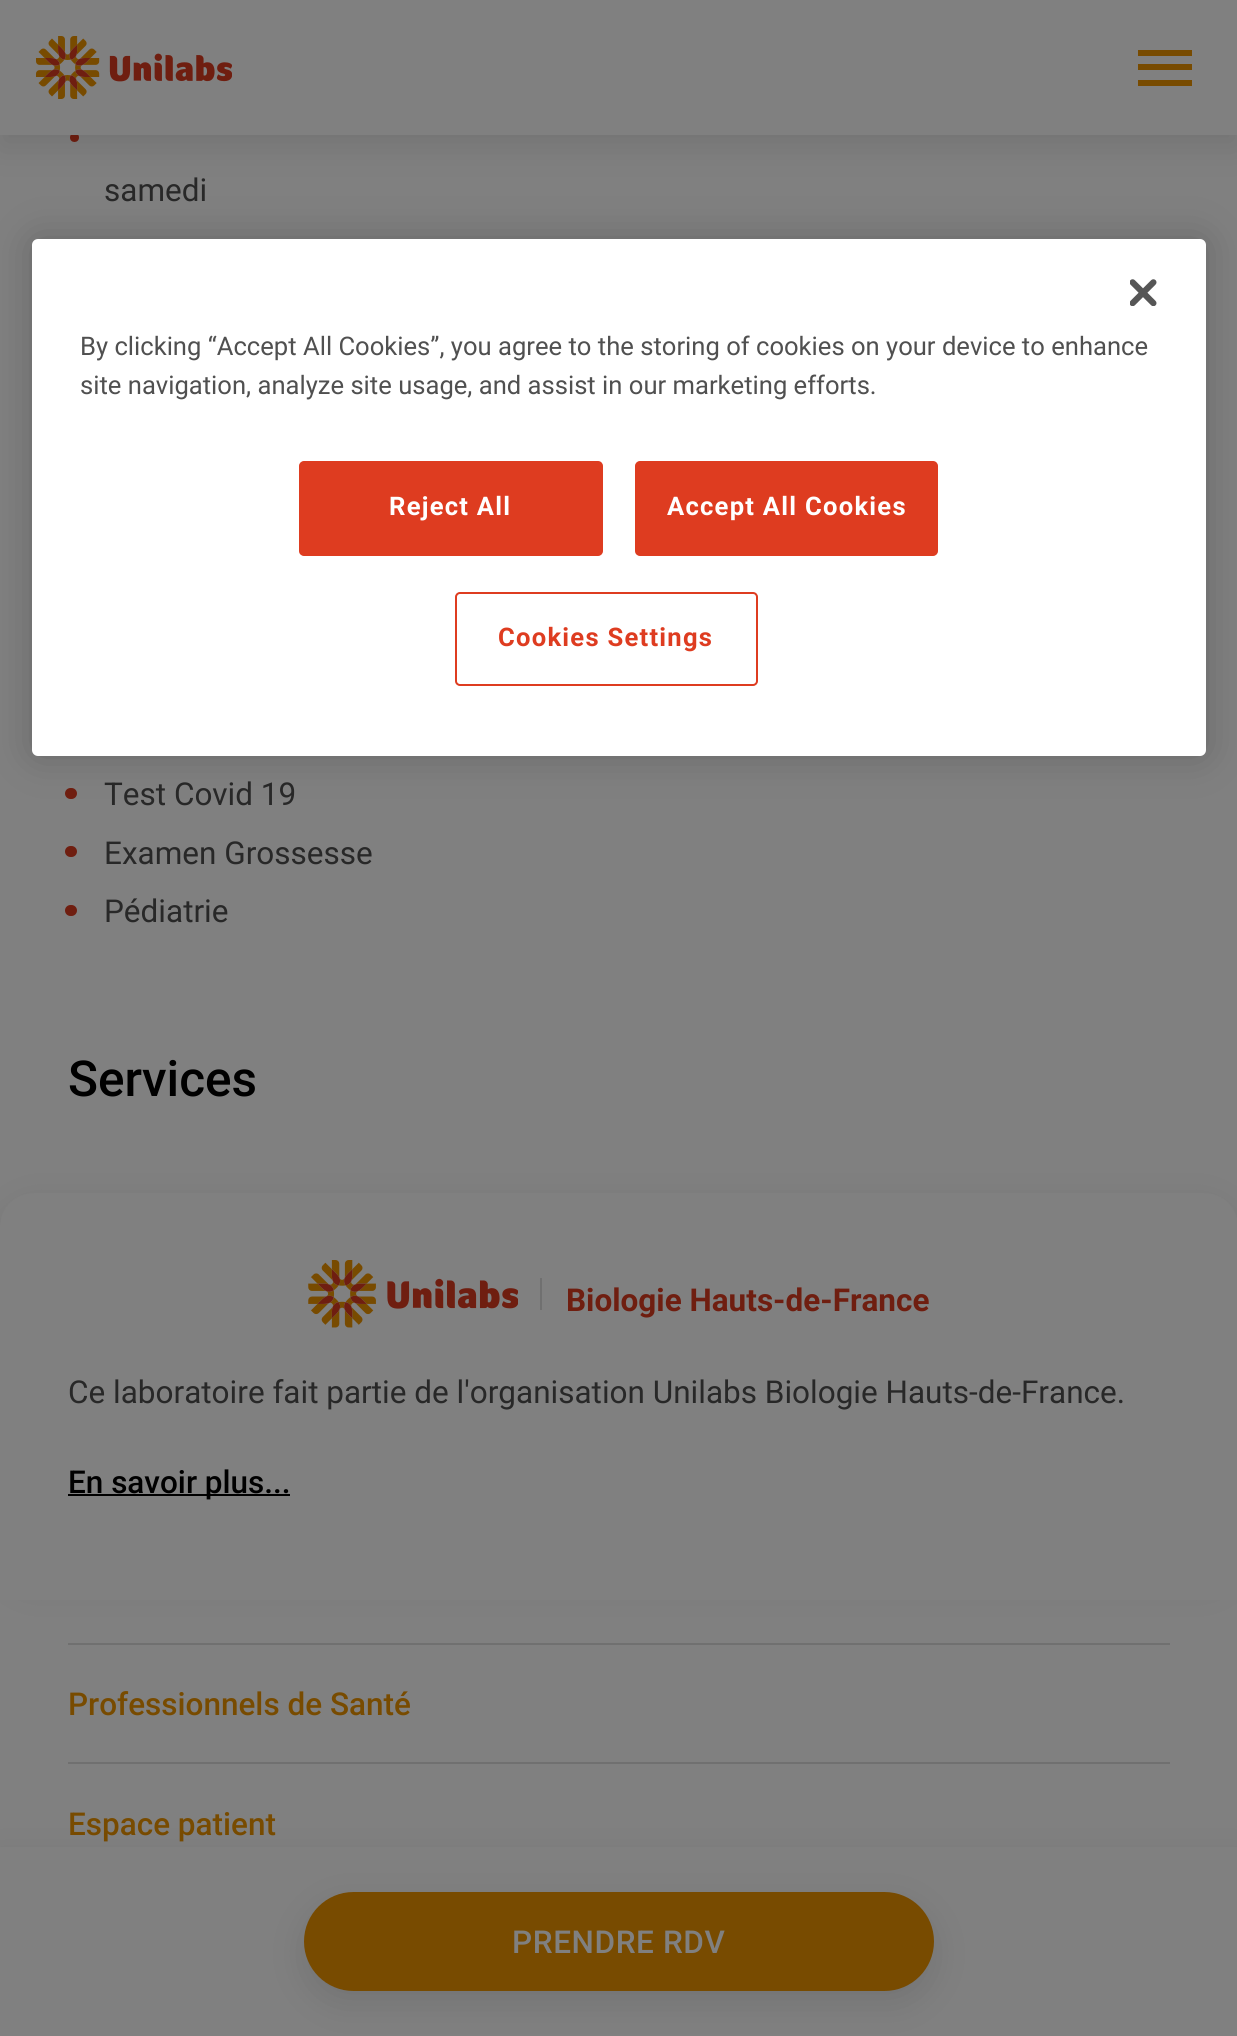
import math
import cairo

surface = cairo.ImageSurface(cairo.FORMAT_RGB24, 1237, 2036)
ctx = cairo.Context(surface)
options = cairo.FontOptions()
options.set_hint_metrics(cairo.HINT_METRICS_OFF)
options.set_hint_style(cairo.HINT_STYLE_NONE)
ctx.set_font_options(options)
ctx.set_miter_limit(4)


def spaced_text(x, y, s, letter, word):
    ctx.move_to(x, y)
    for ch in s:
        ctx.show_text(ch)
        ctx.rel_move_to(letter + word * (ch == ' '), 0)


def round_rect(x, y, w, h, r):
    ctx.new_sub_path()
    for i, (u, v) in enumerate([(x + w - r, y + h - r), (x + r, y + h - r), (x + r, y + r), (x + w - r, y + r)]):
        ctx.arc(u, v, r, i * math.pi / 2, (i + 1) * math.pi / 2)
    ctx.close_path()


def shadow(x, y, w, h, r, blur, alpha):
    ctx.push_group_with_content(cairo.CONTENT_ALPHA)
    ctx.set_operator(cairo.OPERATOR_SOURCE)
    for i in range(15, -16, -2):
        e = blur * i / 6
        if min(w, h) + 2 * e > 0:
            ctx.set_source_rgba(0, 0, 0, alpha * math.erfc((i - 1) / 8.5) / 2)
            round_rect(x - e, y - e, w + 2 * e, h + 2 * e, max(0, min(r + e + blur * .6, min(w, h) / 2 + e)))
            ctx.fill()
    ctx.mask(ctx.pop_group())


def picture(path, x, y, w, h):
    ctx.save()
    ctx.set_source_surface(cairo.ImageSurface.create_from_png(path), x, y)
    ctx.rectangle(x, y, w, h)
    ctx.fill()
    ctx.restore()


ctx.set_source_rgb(0.502, 0.502, 0.502)
ctx.paint()
ctx.set_source_rgb(0.435, 0.118, 0.063)
ctx.arc(74.5, 137.5, 4.5, 0, 2 * math.pi)
ctx.fill()
ctx.set_source_rgb(0, 0, 0)
shadow(0, 11, 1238, 135, 0, 17, 0.1)
ctx.set_source_rgb(0.502, 0.502, 0.502)
ctx.rectangle(0, 0, 1237, 135)
ctx.fill()
picture("img1.png", 36, 36, 196, 63)
ctx.set_source_rgb(0.471, 0.294, 0)
ctx.new_path()
ctx.move_to(1138, 86)
ctx.line_to(1192, 86)
ctx.line_to(1192, 80)
ctx.line_to(1138, 80)
ctx.close_path()
ctx.move_to(1138, 70)
ctx.line_to(1192, 70)
ctx.line_to(1192, 64)
ctx.line_to(1138, 64)
ctx.close_path()
ctx.move_to(1138, 50)
ctx.line_to(1138, 56)
ctx.line_to(1192, 56)
ctx.line_to(1192, 50)
ctx.close_path()
ctx.fill()
ctx.select_font_face("Roboto")
ctx.set_font_size(31.5)
ctx.set_source_rgb(0.157, 0.157, 0.157)
ctx.move_to(104, 201)
ctx.show_text("samedi")
ctx.set_source_rgb(0.435, 0.118, 0.063)
round_rect(65, 788, 12, 11, 5.5)
ctx.fill()
ctx.set_source_rgb(0.157, 0.157, 0.157)
ctx.move_to(104, 805)
ctx.show_text("Test Covid 19")
ctx.set_source_rgb(0.435, 0.118, 0.063)
round_rect(65, 846, 12, 11, 5.5)
ctx.fill()
ctx.set_source_rgb(0.157, 0.157, 0.157)
ctx.move_to(104, 864)
ctx.show_text("Examen Grossesse")
ctx.set_source_rgb(0.435, 0.118, 0.063)
round_rect(65, 905, 12, 11, 5.5)
ctx.fill()
ctx.set_source_rgb(0.157, 0.157, 0.157)
ctx.move_to(104, 922)
ctx.show_text("Pédiatrie")
ctx.select_font_face("Roboto Medium")
ctx.set_font_size(49.5)
ctx.set_source_rgb(0, 0, 0)
ctx.move_to(68, 1096)
ctx.show_text("Services")
ctx.set_source_rgb(0, 0, 0)
shadow(0, 1204, 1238, 382, 34, 17, 0.1)
ctx.set_source_rgb(0.502, 0.502, 0.502)
ctx.new_path()
ctx.move_to(34, 1193)
ctx.line_to(1204, 1193)
ctx.curve_to(1223, 1193, 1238, 1208, 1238, 1227)
ctx.line_to(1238, 1575)
ctx.line_to(0, 1575)
ctx.line_to(0, 1227)
ctx.curve_to(0, 1208, 15, 1193, 34, 1193)
ctx.close_path()
ctx.fill()
picture("img2.png", 308, 1260, 210, 68)
ctx.set_source_rgb(0.439, 0.439, 0.439)
ctx.rectangle(540, 1278, 2, 32)
ctx.fill()
ctx.select_font_face("Roboto", cairo.FONT_SLANT_NORMAL, cairo.FONT_WEIGHT_BOLD)
ctx.set_font_size(31.5)
ctx.set_source_rgb(0.435, 0.118, 0.063)
ctx.move_to(566, 1311)
ctx.show_text("Biologie Hauts-de-France")
ctx.select_font_face("Roboto")
ctx.set_source_rgb(0.157, 0.157, 0.157)
ctx.move_to(68, 1403)
ctx.show_text("Ce laboratoire fait partie de l'organisation Unilabs Biologie Hauts-de-France.")
ctx.set_source_rgb(0, 0, 0)
ctx.rectangle(68, 1494, 222, 2)
ctx.fill()
ctx.select_font_face("Roboto Medium")
ctx.move_to(68, 1493)
ctx.show_text("En savoir plus...")
ctx.set_source_rgb(0.502, 0.502, 0.502)
ctx.rectangle(0, 1575, 1237, 25)
ctx.fill()
ctx.set_source_rgb(0.439, 0.439, 0.439)
ctx.rectangle(68, 1643, 1102, 2)
ctx.fill()
ctx.set_source_rgb(0.471, 0.294, 0)
ctx.move_to(68, 1715)
ctx.show_text("Professionnels de Santé")
ctx.set_source_rgb(0.439, 0.439, 0.439)
ctx.rectangle(68, 1762, 1102, 2)
ctx.fill()
ctx.set_source_rgb(0.471, 0.294, 0)
ctx.move_to(68, 1835)
ctx.show_text("Espace patient")
ctx.set_source_rgb(0, 0, 0)
shadow(0, 1859, 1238, 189, 0, 17, 0.1)
ctx.set_source_rgb(0.502, 0.502, 0.502)
ctx.rectangle(0, 1847, 1237, 189)
ctx.fill()
ctx.set_source_rgb(0, 0, 0)
shadow(304, 1904, 630, 99, 49.5, 17, 0.1)
ctx.set_source_rgb(0.471, 0.294, 0)
round_rect(304, 1892, 630, 99, 49.5)
ctx.fill()
ctx.set_source_rgb(0.502, 0.502, 0.502)
spaced_text(512, 1953, "PRENDRE RDV", 0.6, 0)
ctx.set_source_rgb(0, 0, 0)
shadow(32, 239, 1174, 517, 6, 20, 0.2)
ctx.set_source_rgb(1, 1, 1)
round_rect(32, 239, 1174, 517, 6)
ctx.fill()
picture("img3.png", 1130, 279, 27, 27)
ctx.select_font_face("Roboto")
ctx.set_font_size(25.6)
ctx.set_source_rgb(0.314, 0.314, 0.314)
ctx.move_to(80, 355)
ctx.show_text("By clicking “Accept All Cookies”, you agree to the storing of cookies on your device to enhance")
ctx.move_to(80, 394)
ctx.show_text("site navigation, analyze site usage, and assist in our marketing efforts.")
ctx.set_source_rgb(0.871, 0.235, 0.125)
round_rect(300, 462, 302, 93, 4)
ctx.fill_preserve()
ctx.stroke()
ctx.select_font_face("Roboto", cairo.FONT_SLANT_NORMAL, cairo.FONT_WEIGHT_BOLD)
ctx.set_source_rgb(1, 1, 1)
spaced_text(389, 515, "Reject All", 1.25, 0)
ctx.set_source_rgb(0.871, 0.235, 0.125)
round_rect(636, 462, 301, 93, 4)
ctx.fill_preserve()
ctx.stroke()
ctx.set_source_rgb(1, 1, 1)
spaced_text(667, 515, "Accept All Cookies", 1.25, 0)
round_rect(456, 593, 301, 92, 4)
ctx.set_source_rgb(0.871, 0.235, 0.125)
ctx.stroke()
spaced_text(498, 646, "Cookies Settings", 1.25, 0)
surface.write_to_png("page.png")
